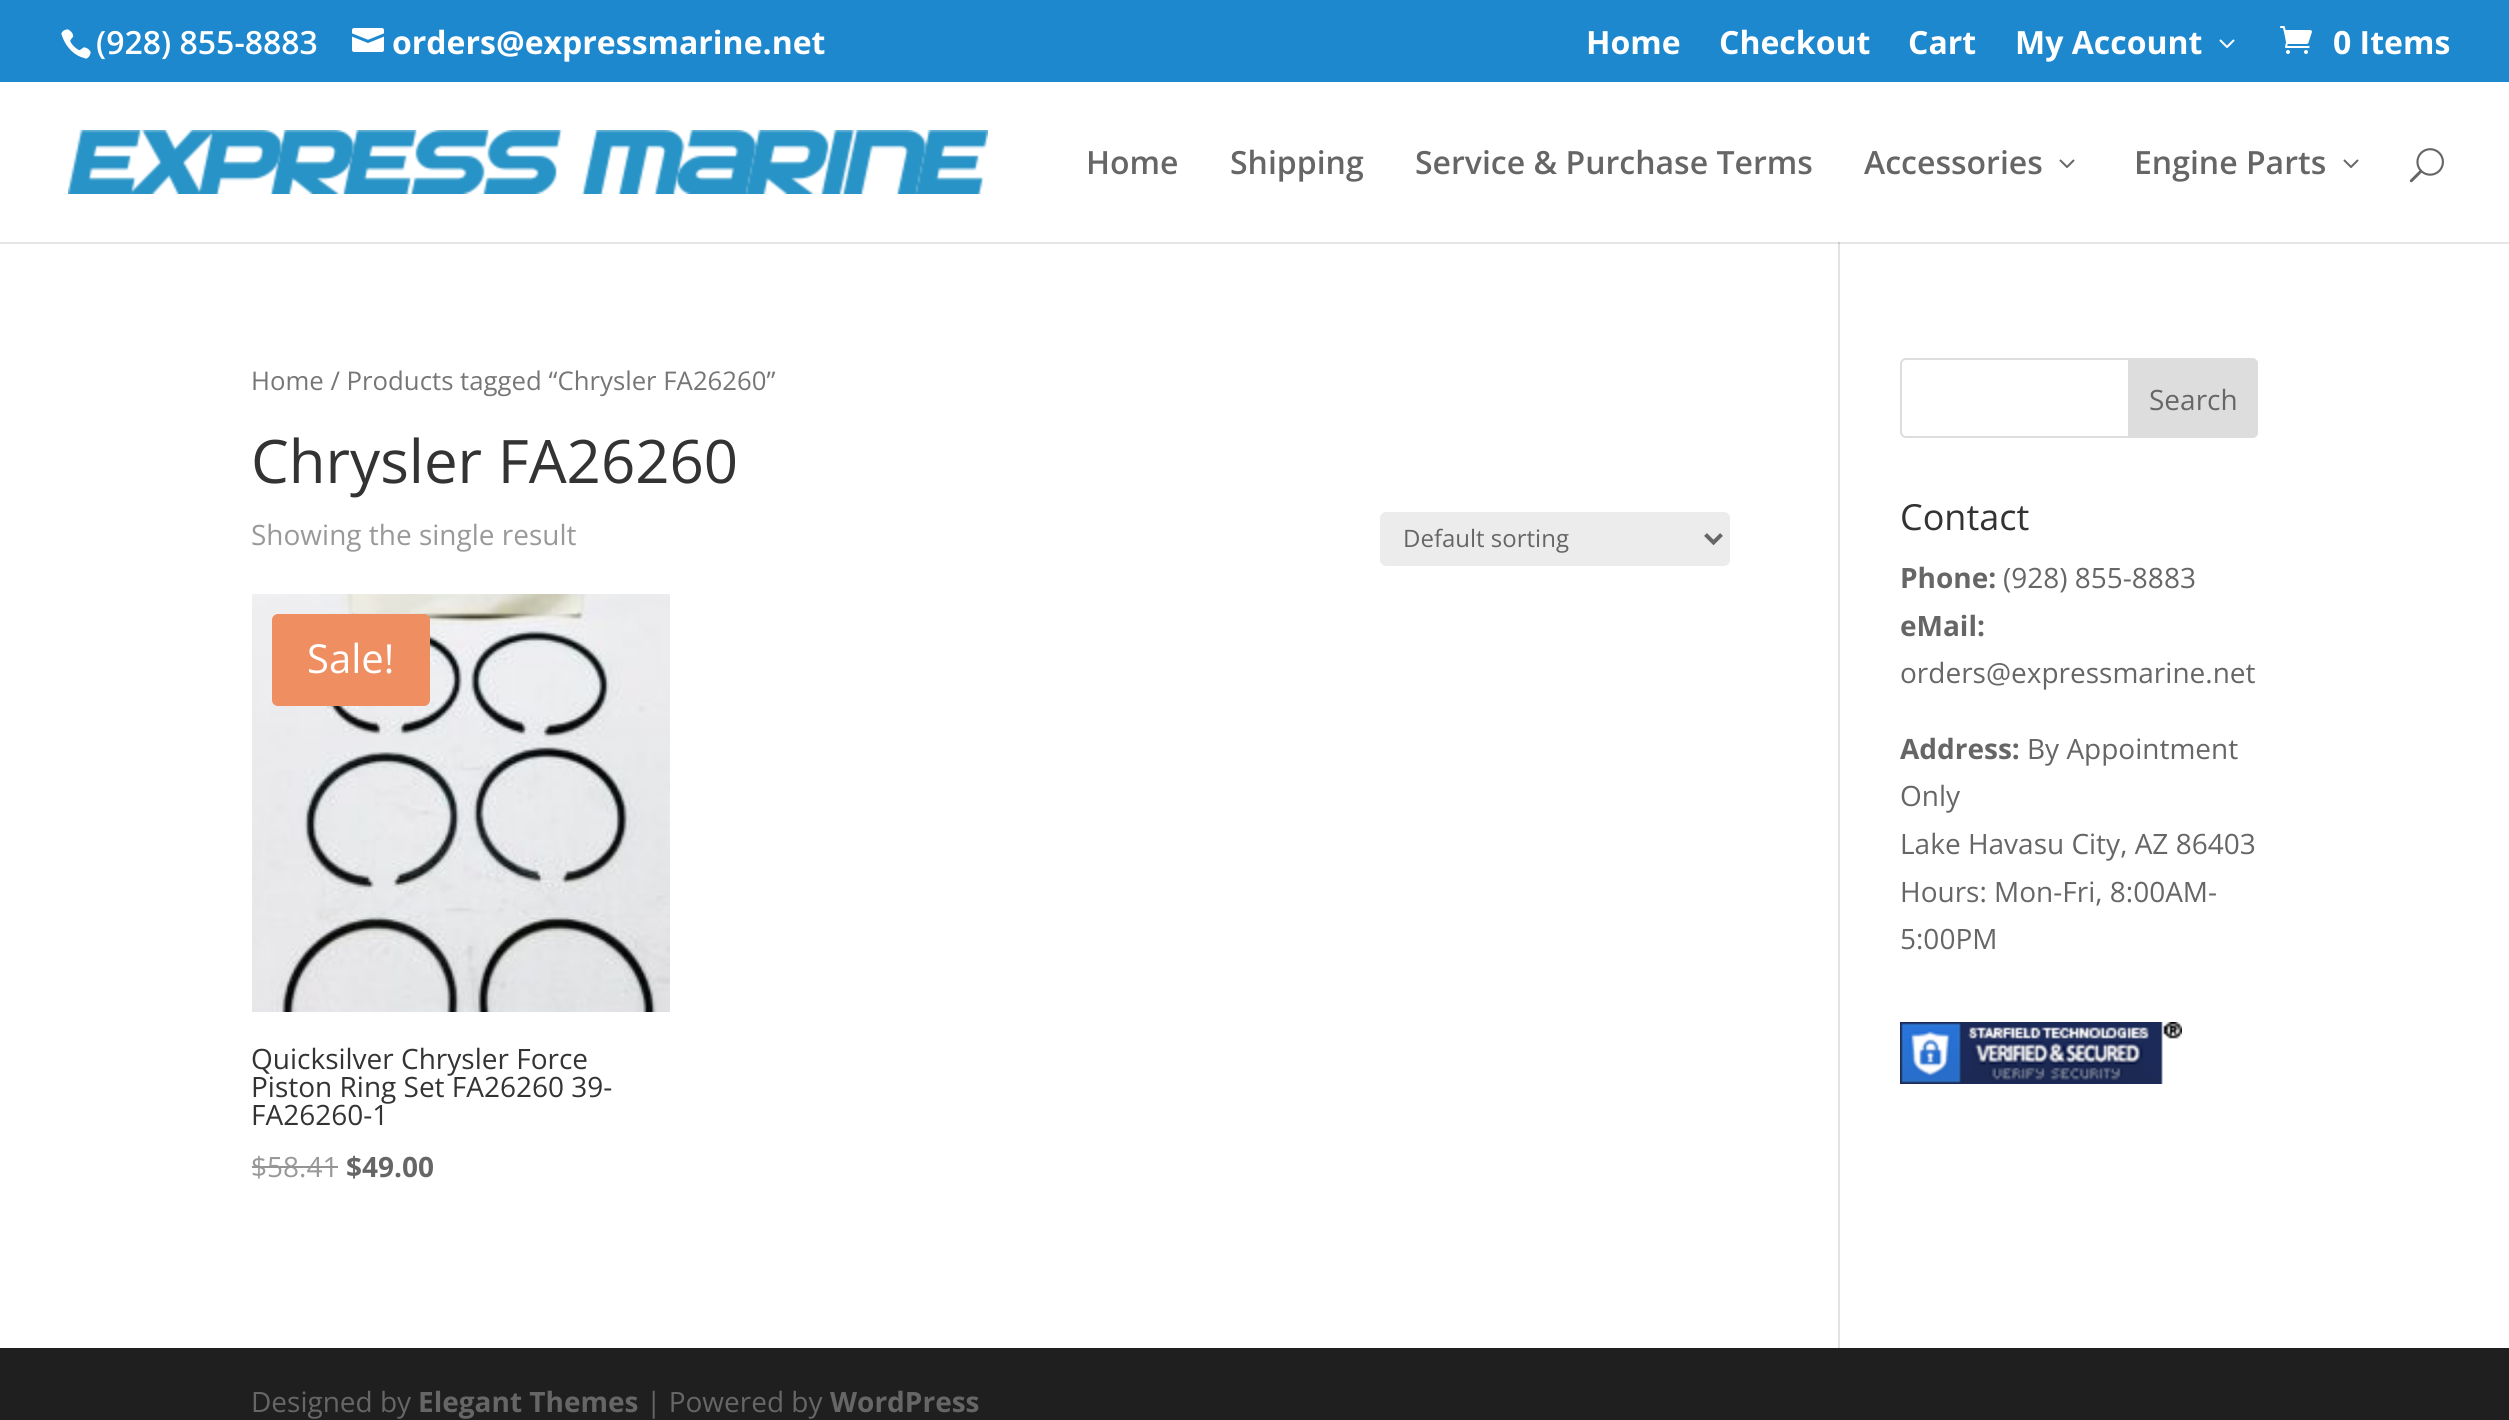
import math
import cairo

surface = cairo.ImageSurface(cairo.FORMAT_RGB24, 2509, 1420)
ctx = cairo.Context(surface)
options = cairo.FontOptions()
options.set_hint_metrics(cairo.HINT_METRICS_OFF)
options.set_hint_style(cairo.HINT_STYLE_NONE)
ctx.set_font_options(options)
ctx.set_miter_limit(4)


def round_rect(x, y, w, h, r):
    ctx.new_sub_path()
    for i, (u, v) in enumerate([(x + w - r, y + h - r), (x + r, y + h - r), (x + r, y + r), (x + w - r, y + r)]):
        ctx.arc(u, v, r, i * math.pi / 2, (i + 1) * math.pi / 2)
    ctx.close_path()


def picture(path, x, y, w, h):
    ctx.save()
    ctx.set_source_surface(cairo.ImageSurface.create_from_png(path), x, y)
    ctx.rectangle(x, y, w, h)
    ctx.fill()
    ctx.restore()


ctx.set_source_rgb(1, 1, 1)
ctx.paint()
ctx.set_source_rgb(0.902, 0.902, 0.902)
ctx.rectangle(0, 242, 2509, 2)
ctx.fill()
ctx.set_source_rgb(0.118, 0.533, 0.808)
ctx.rectangle(0, 0, 2509, 82)
ctx.fill()
picture("img1.png", 61, 29, 30, 30)
ctx.select_font_face("Open Sans SemiBold")
ctx.set_font_size(32)
ctx.set_source_rgb(1, 1, 1)
ctx.move_to(96, 54)
ctx.show_text("(928) 855-8883")
picture("img2.png", 352, 28, 32, 24)
ctx.select_font_face("Open Sans", cairo.FONT_SLANT_NORMAL, cairo.FONT_WEIGHT_BOLD)
ctx.move_to(392, 54)
ctx.show_text("orders@expressmarine.net")
ctx.move_to(1586, 54)
ctx.show_text("Home")
ctx.move_to(1719, 54)
ctx.show_text("Checkout")
ctx.move_to(1908, 54)
ctx.show_text("Cart")
ctx.move_to(2015, 54)
ctx.show_text("My Account")
picture("img3.png", 2219, 39, 16, 9)
picture("img4.png", 2280, 26, 32, 28)
ctx.move_to(2333, 54)
ctx.show_text("0 Items")
picture("img5.png", 68, 130, 920, 64)
ctx.select_font_face("Open Sans SemiBold")
ctx.set_source_rgb(0.4, 0.4, 0.4)
ctx.move_to(1086, 174)
ctx.show_text("Home")
ctx.move_to(1230, 174)
ctx.show_text("Shipping")
ctx.move_to(1415, 174)
ctx.show_text("Service & Purchase Terms")
ctx.move_to(1864, 174)
ctx.show_text("Accessories")
picture("img6.png", 2059, 159, 16, 9)
ctx.move_to(2134, 174)
ctx.show_text("Engine Parts")
picture("img6.png", 2343, 159, 16, 9)
picture("img7.png", 2409, 148, 35, 35)
ctx.set_source_rgb(0.886, 0.886, 0.886)
ctx.rectangle(1838, 242, 2, 1106)
ctx.fill()
ctx.set_source_rgb(0.796, 0.796, 0.796)
ctx.rectangle(1838, 242, 2, 2)
ctx.fill()
ctx.select_font_face("Open Sans")
ctx.set_font_size(25.75)
ctx.set_source_rgb(0.463, 0.463, 0.463)
ctx.move_to(251, 390)
ctx.show_text("Home / Products tagged “Chrysler FA26260”")
ctx.set_font_size(60)
ctx.set_source_rgb(0.2, 0.2, 0.2)
ctx.move_to(251, 483)
ctx.show_text("Chrysler FA26260")
ctx.set_font_size(28)
ctx.set_source_rgb(0.6, 0.6, 0.6)
ctx.move_to(251, 545)
ctx.show_text("Showing the single result")
ctx.set_source_rgb(0.925, 0.925, 0.925)
round_rect(1380, 512, 350, 54, 6)
ctx.fill()
ctx.new_path()
ctx.move_to(1705.5, 534.5)
ctx.line_to(1713.5, 542.5)
ctx.line_to(1721.5, 534.5)
ctx.set_source_rgb(0.4, 0.4, 0.4)
ctx.set_line_width(4)
ctx.stroke()
ctx.set_font_size(24)
ctx.move_to(1403, 547)
ctx.show_text("Default sorting")
picture("img8.png", 252, 594, 418, 418)
ctx.set_source_rgb(0.937, 0.561, 0.38)
round_rect(272, 614, 158, 92, 6)
ctx.fill()
ctx.set_font_size(40)
ctx.set_source_rgb(1, 1, 1)
ctx.move_to(307, 673)
ctx.show_text("Sale!")
ctx.set_font_size(28)
ctx.set_source_rgb(0.2, 0.2, 0.2)
ctx.move_to(251, 1069)
ctx.show_text("Quicksilver Chrysler Force")
ctx.move_to(251, 1097)
ctx.show_text("Piston Ring Set FA26260 39-")
ctx.move_to(251, 1125)
ctx.show_text("FA26260-1")
ctx.set_source_rgb(0.6, 0.6, 0.6)
ctx.move_to(251, 1177)
ctx.show_text("$58.41")
ctx.set_source_rgb(0.58, 0.58, 0.58)
ctx.rectangle(252, 1166, 86, 2)
ctx.fill()
ctx.select_font_face("Open Sans", cairo.FONT_SLANT_NORMAL, cairo.FONT_WEIGHT_BOLD)
ctx.set_source_rgb(0.4, 0.4, 0.4)
ctx.move_to(346, 1177)
ctx.show_text("$49.00")
round_rect(1901, 359, 356, 78, 5)
ctx.set_source_rgb(0.867, 0.867, 0.867)
ctx.set_line_width(2)
ctx.stroke()
ctx.new_path()
ctx.move_to(2129, 359)
ctx.line_to(2252, 359)
ctx.curve_to(2255, 359, 2257, 361, 2257, 364)
ctx.line_to(2257, 432)
ctx.curve_to(2257, 435, 2255, 437, 2252, 437)
ctx.line_to(2129, 437)
ctx.close_path()
ctx.fill_preserve()
ctx.stroke()
ctx.select_font_face("Open Sans")
ctx.set_source_rgb(0.4, 0.4, 0.4)
ctx.move_to(2149, 410)
ctx.show_text("Search")
ctx.set_font_size(36)
ctx.set_source_rgb(0.2, 0.2, 0.2)
ctx.move_to(1900, 530)
ctx.show_text("Contact")
ctx.select_font_face("Open Sans", cairo.FONT_SLANT_NORMAL, cairo.FONT_WEIGHT_BOLD)
ctx.set_font_size(28)
ctx.set_source_rgb(0.4, 0.4, 0.4)
ctx.move_to(1900, 588)
ctx.show_text("Phone:")
ctx.select_font_face("Open Sans")
ctx.move_to(2003, 588)
ctx.show_text("(928) 855-8883")
ctx.select_font_face("Open Sans", cairo.FONT_SLANT_NORMAL, cairo.FONT_WEIGHT_BOLD)
ctx.move_to(1900, 636)
ctx.show_text("eMail:")
ctx.select_font_face("Open Sans")
ctx.move_to(1900, 683)
ctx.show_text("orders@expressmarine.net")
ctx.select_font_face("Open Sans", cairo.FONT_SLANT_NORMAL, cairo.FONT_WEIGHT_BOLD)
ctx.move_to(1900, 759)
ctx.show_text("Address:")
ctx.select_font_face("Open Sans")
ctx.move_to(2027, 759)
ctx.show_text("By Appointment")
ctx.move_to(1900, 806)
ctx.show_text("Only")
ctx.move_to(1900, 854)
ctx.show_text("Lake Havasu City, AZ 86403")
ctx.move_to(1900, 902)
ctx.show_text("Hours: Mon-Fri, 8:00AM-")
ctx.move_to(1900, 949)
ctx.show_text("5:00PM")
picture("img9.png", 1900, 1022, 282, 62)
ctx.set_source_rgb(0.122, 0.122, 0.122)
ctx.rectangle(0, 1348, 2509, 72)
ctx.fill()
ctx.set_source_rgb(0.4, 0.4, 0.4)
ctx.move_to(251, 1412)
ctx.show_text("Designed by")
ctx.select_font_face("Open Sans", cairo.FONT_SLANT_NORMAL, cairo.FONT_WEIGHT_BOLD)
ctx.move_to(418, 1412)
ctx.show_text("Elegant Themes")
ctx.select_font_face("Open Sans")
ctx.move_to(646, 1412)
ctx.show_text("| Powered by")
ctx.select_font_face("Open Sans", cairo.FONT_SLANT_NORMAL, cairo.FONT_WEIGHT_BOLD)
ctx.move_to(830, 1412)
ctx.show_text("WordPress")
surface.write_to_png("page.png")
